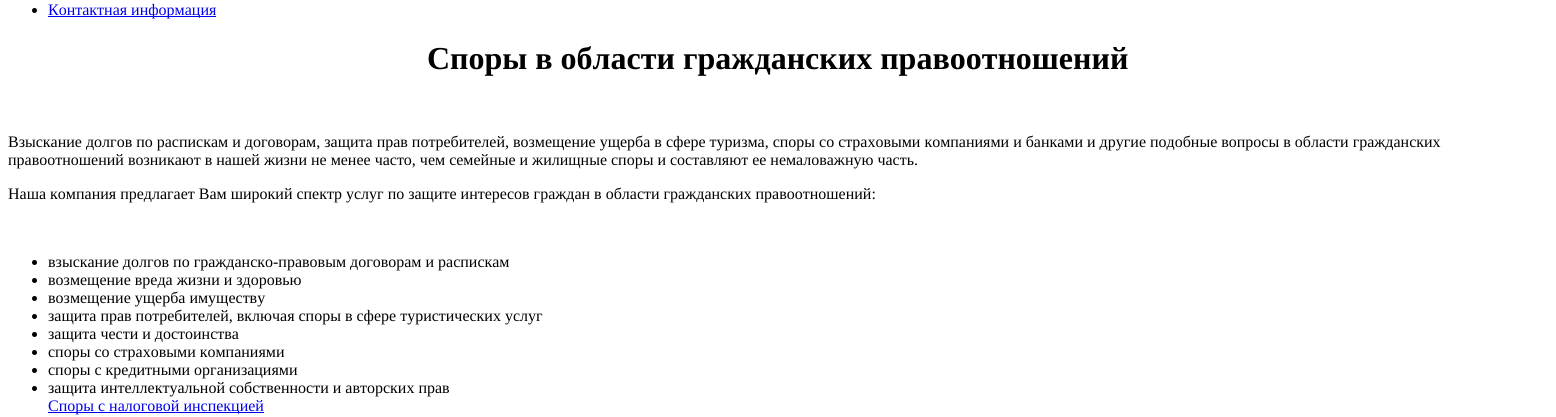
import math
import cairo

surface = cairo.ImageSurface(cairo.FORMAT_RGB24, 1556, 417)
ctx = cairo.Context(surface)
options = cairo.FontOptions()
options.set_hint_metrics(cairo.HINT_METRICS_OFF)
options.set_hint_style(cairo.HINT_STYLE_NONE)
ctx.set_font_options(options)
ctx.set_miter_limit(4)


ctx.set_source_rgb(1, 1, 1)
ctx.paint()
ctx.set_source_rgb(0, 0, 0)
ctx.arc(34.5, 10.5, 2.5, 0, 2 * math.pi)
ctx.fill()
ctx.set_source_rgb(0, 0, 0.933)
ctx.rectangle(48, 16, 168, 1)
ctx.fill()
ctx.select_font_face("Liberation Serif")
ctx.set_font_size(16)
ctx.move_to(48, 15)
ctx.show_text("Контактная информация")
ctx.select_font_face("Liberation Serif", cairo.FONT_SLANT_NORMAL, cairo.FONT_WEIGHT_BOLD)
ctx.set_font_size(32)
ctx.set_source_rgb(0, 0, 0)
ctx.move_to(427, 69)
ctx.show_text("Споры в области гражданских правоотношений")
ctx.select_font_face("Liberation Serif")
ctx.set_font_size(16)
ctx.move_to(8, 147)
ctx.show_text("Взыскание долгов по распискам и договорам, защита прав потребителей, возмещение ущерба в сфере туризма, споры со страховыми компаниями и банками и другие подобные вопросы в области гражданских")
ctx.move_to(8, 165)
ctx.show_text("правоотношений возникают в нашей жизни не менее часто, чем семейные и жилищные споры и составляют ее немаловажную часть.")
ctx.move_to(8, 199)
ctx.show_text("Наша компания предлагает Вам широкий спектр услуг по защите интересов граждан в области гражданских правоотношений:")
ctx.new_path()
ctx.arc(34.5, 262.5, 2.5, 0, 2 * math.pi)
ctx.fill()
ctx.move_to(48, 267)
ctx.show_text("взыскание долгов по гражданско-правовым договорам и распискам")
ctx.new_path()
ctx.arc(34.5, 280.5, 2.5, 0, 2 * math.pi)
ctx.fill()
ctx.move_to(48, 285)
ctx.show_text("возмещение вреда жизни и здоровью")
ctx.new_path()
ctx.arc(34.5, 298.5, 2.5, 0, 2 * math.pi)
ctx.fill()
ctx.move_to(48, 303)
ctx.show_text("возмещение ущерба имуществу")
ctx.new_path()
ctx.arc(34.5, 316.5, 2.5, 0, 2 * math.pi)
ctx.fill()
ctx.move_to(48, 321)
ctx.show_text("защита прав потребителей, включая споры в сфере туристических услуг")
ctx.new_path()
ctx.arc(34.5, 334.5, 2.5, 0, 2 * math.pi)
ctx.fill()
ctx.move_to(48, 339)
ctx.show_text("защита чести и достоинства")
ctx.new_path()
ctx.arc(34.5, 352.5, 2.5, 0, 2 * math.pi)
ctx.fill()
ctx.move_to(48, 357)
ctx.show_text("споры со страховыми компаниями")
ctx.new_path()
ctx.arc(34.5, 370.5, 2.5, 0, 2 * math.pi)
ctx.fill()
ctx.move_to(48, 375)
ctx.show_text("споры с кредитными организациями")
ctx.new_path()
ctx.arc(34.5, 388.5, 2.5, 0, 2 * math.pi)
ctx.fill()
ctx.move_to(48, 393)
ctx.show_text("защита интеллектуальной собственности и авторских прав")
ctx.set_source_rgb(0, 0, 0.933)
ctx.rectangle(48, 412, 216, 1)
ctx.fill()
ctx.move_to(48, 411)
ctx.show_text("Споры с налоговой инспекцией")
surface.write_to_png("page.png")
